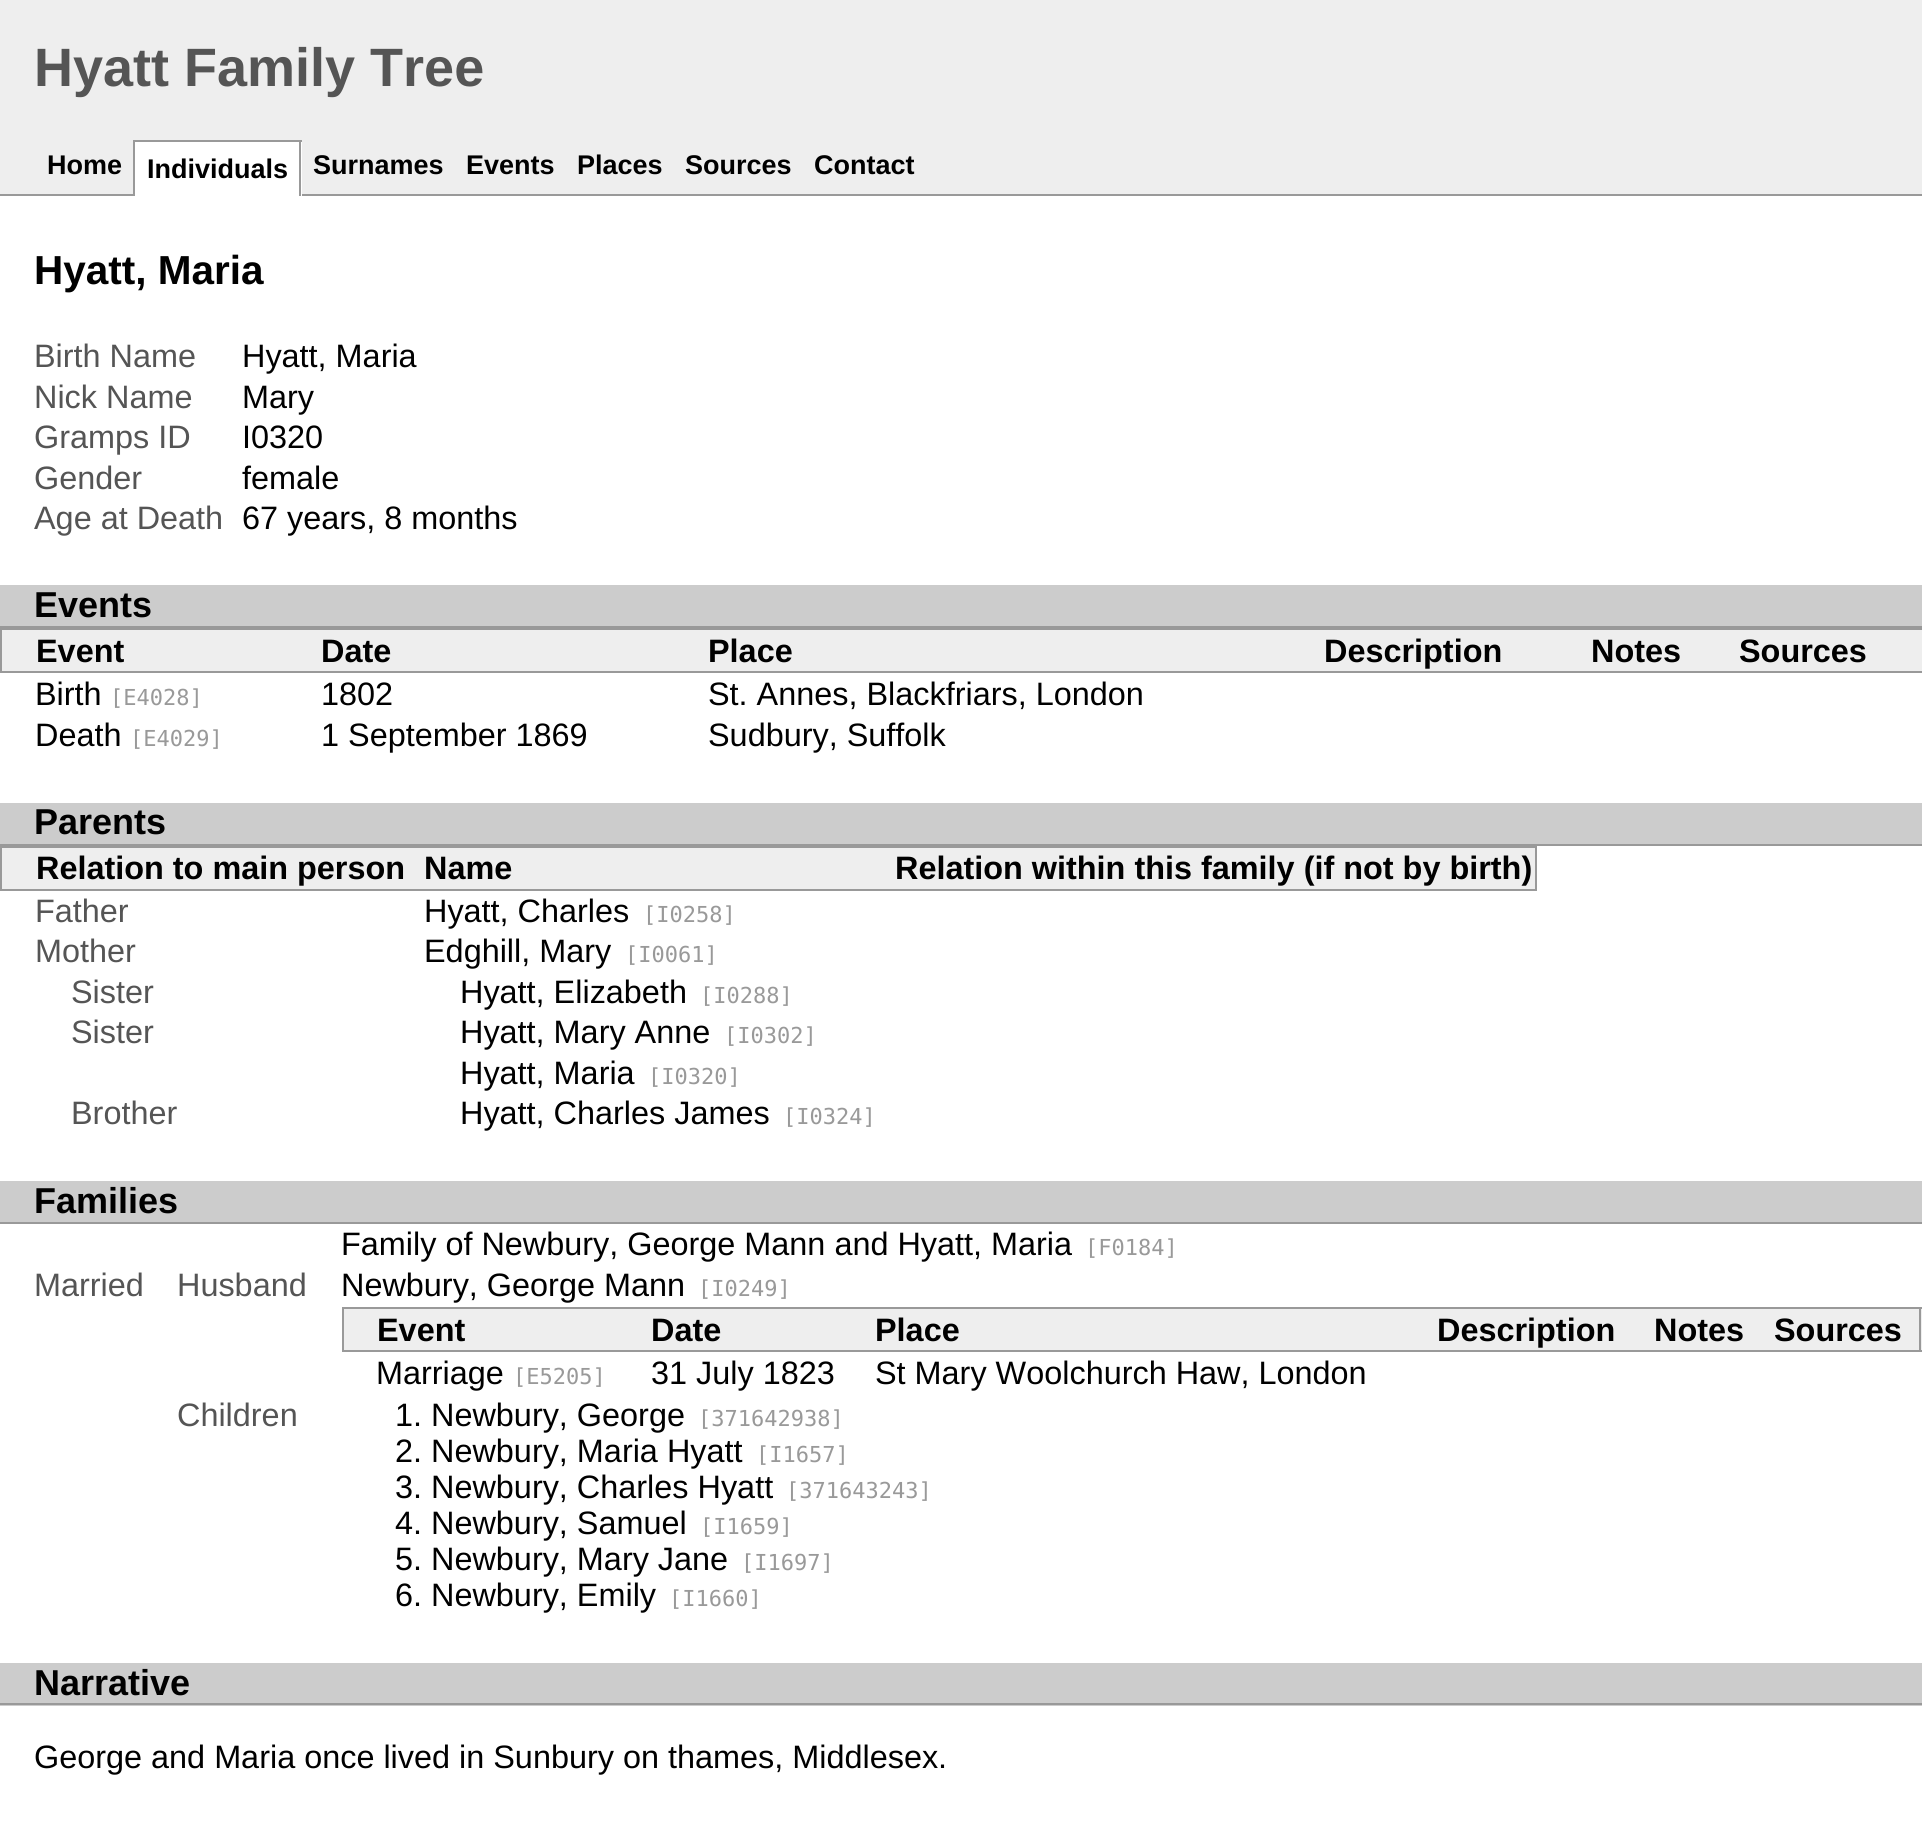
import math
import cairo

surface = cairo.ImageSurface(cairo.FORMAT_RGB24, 1922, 1847)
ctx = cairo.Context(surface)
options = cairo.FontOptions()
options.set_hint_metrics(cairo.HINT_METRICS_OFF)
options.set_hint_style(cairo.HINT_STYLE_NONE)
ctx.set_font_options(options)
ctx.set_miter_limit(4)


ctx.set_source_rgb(0.933, 0.933, 0.933)
ctx.paint()
ctx.select_font_face("Liberation Sans", cairo.FONT_SLANT_NORMAL, cairo.FONT_WEIGHT_BOLD)
ctx.set_font_size(54)
ctx.set_source_rgb(0.333, 0.333, 0.333)
ctx.move_to(34, 86)
ctx.show_text("Hyatt Family Tree")
ctx.set_font_size(27)
ctx.set_source_rgb(0, 0, 0)
ctx.move_to(47, 174)
ctx.show_text("Home")
ctx.set_source_rgb(0.6, 0.6, 0.6)
ctx.rectangle(0, 194, 1922, 2)
ctx.fill()
ctx.set_source_rgb(1, 1, 1)
ctx.rectangle(135, 142, 167, 54)
ctx.fill()
ctx.set_source_rgb(0.6, 0.6, 0.6)
ctx.rectangle(133, 140, 169, 2)
ctx.fill()
ctx.rectangle(299, 140, 2, 56)
ctx.fill()
ctx.rectangle(133, 140, 2, 56)
ctx.fill()
ctx.set_source_rgb(0, 0, 0)
ctx.move_to(147, 178)
ctx.show_text("Individuals")
ctx.move_to(313, 174)
ctx.show_text("Surnames")
ctx.move_to(466, 174)
ctx.show_text("Events")
ctx.move_to(577, 174)
ctx.show_text("Places")
ctx.move_to(685, 174)
ctx.show_text("Sources")
ctx.move_to(814, 174)
ctx.show_text("Contact")
ctx.set_source_rgb(1, 1, 1)
ctx.rectangle(0, 196, 1922, 1651)
ctx.fill()
ctx.set_font_size(40.5)
ctx.set_source_rgb(0, 0, 0)
ctx.move_to(34, 284)
ctx.show_text("Hyatt, Maria")
ctx.select_font_face("Liberation Sans")
ctx.set_font_size(32.4)
ctx.set_source_rgb(0.333, 0.333, 0.333)
ctx.move_to(34, 367)
ctx.show_text("Birth Name")
ctx.set_source_rgb(0, 0, 0)
ctx.move_to(242, 367)
ctx.show_text("Hyatt, Maria")
ctx.set_source_rgb(0.333, 0.333, 0.333)
ctx.move_to(34, 408)
ctx.show_text("Nick Name")
ctx.set_source_rgb(0, 0, 0)
ctx.move_to(242, 408)
ctx.show_text("Mary")
ctx.set_source_rgb(0.333, 0.333, 0.333)
ctx.move_to(34, 448)
ctx.show_text("Gramps ID")
ctx.set_source_rgb(0, 0, 0)
ctx.move_to(242, 448)
ctx.show_text("I0320")
ctx.set_source_rgb(0.333, 0.333, 0.333)
ctx.move_to(34, 489)
ctx.show_text("Gender")
ctx.set_source_rgb(0, 0, 0)
ctx.move_to(242, 489)
ctx.show_text("female")
ctx.set_source_rgb(0.333, 0.333, 0.333)
ctx.move_to(34, 529)
ctx.show_text("Age at Death")
ctx.set_source_rgb(0, 0, 0)
ctx.move_to(242, 529)
ctx.show_text("67 years, 8 months")
ctx.set_source_rgb(0.8, 0.8, 0.8)
ctx.rectangle(0, 585, 1922, 41)
ctx.fill()
ctx.set_source_rgb(0.6, 0.6, 0.6)
ctx.rectangle(0, 626, 1922, 2)
ctx.fill()
ctx.select_font_face("Liberation Sans", cairo.FONT_SLANT_NORMAL, cairo.FONT_WEIGHT_BOLD)
ctx.set_font_size(36)
ctx.set_source_rgb(0, 0, 0)
ctx.move_to(34, 617)
ctx.show_text("Events")
ctx.set_source_rgb(0.933, 0.933, 0.933)
ctx.rectangle(2, 630, 1920, 41)
ctx.fill()
ctx.set_source_rgb(0.6, 0.6, 0.6)
ctx.rectangle(0, 628, 1922, 2)
ctx.fill()
ctx.rectangle(0, 671, 1922, 2)
ctx.fill()
ctx.rectangle(0, 628, 2, 45)
ctx.fill()
ctx.set_font_size(32.4)
ctx.set_source_rgb(0, 0, 0)
ctx.move_to(36, 662)
ctx.show_text("Event")
ctx.move_to(321, 662)
ctx.show_text("Date")
ctx.move_to(708, 662)
ctx.show_text("Place")
ctx.move_to(1324, 662)
ctx.show_text("Description")
ctx.move_to(1591, 662)
ctx.show_text("Notes")
ctx.move_to(1739, 662)
ctx.show_text("Sources")
ctx.select_font_face("Liberation Sans")
ctx.move_to(35, 705)
ctx.show_text("Birth")
ctx.select_font_face("DejaVu Sans Mono")
ctx.set_font_size(22)
ctx.set_source_rgb(0.6, 0.6, 0.6)
ctx.move_to(110, 705)
ctx.show_text("[E4028]")
ctx.select_font_face("Liberation Sans")
ctx.set_font_size(32.4)
ctx.set_source_rgb(0, 0, 0)
ctx.move_to(321, 705)
ctx.show_text("1802")
ctx.move_to(708, 705)
ctx.show_text("St. Annes, Blackfriars, London")
ctx.move_to(35, 746)
ctx.show_text("Death")
ctx.select_font_face("DejaVu Sans Mono")
ctx.set_font_size(22)
ctx.set_source_rgb(0.6, 0.6, 0.6)
ctx.move_to(130, 746)
ctx.show_text("[E4029]")
ctx.select_font_face("Liberation Sans")
ctx.set_font_size(32.4)
ctx.set_source_rgb(0, 0, 0)
ctx.move_to(321, 746)
ctx.show_text("1 September 1869")
ctx.move_to(708, 746)
ctx.show_text("Sudbury, Suffolk")
ctx.set_source_rgb(0.8, 0.8, 0.8)
ctx.rectangle(0, 803, 1922, 41)
ctx.fill()
ctx.set_source_rgb(0.6, 0.6, 0.6)
ctx.rectangle(0, 844, 1922, 2)
ctx.fill()
ctx.select_font_face("Liberation Sans", cairo.FONT_SLANT_NORMAL, cairo.FONT_WEIGHT_BOLD)
ctx.set_font_size(36)
ctx.set_source_rgb(0, 0, 0)
ctx.move_to(34, 834)
ctx.show_text("Parents")
ctx.set_source_rgb(0.933, 0.933, 0.933)
ctx.rectangle(2, 848, 1533, 41)
ctx.fill()
ctx.set_source_rgb(0.6, 0.6, 0.6)
ctx.rectangle(0, 846, 1537, 2)
ctx.fill()
ctx.rectangle(1535, 846, 2, 45)
ctx.fill()
ctx.rectangle(0, 889, 1537, 2)
ctx.fill()
ctx.rectangle(0, 846, 2, 45)
ctx.fill()
ctx.set_font_size(32.4)
ctx.set_source_rgb(0, 0, 0)
ctx.move_to(36, 879)
ctx.show_text("Relation to main person")
ctx.move_to(424, 879)
ctx.show_text("Name")
ctx.move_to(895, 879)
ctx.show_text("Relation within this family (if not by birth)")
ctx.select_font_face("Liberation Sans")
ctx.set_source_rgb(0.333, 0.333, 0.333)
ctx.move_to(35, 922)
ctx.show_text("Father")
ctx.set_source_rgb(0, 0, 0)
ctx.move_to(424, 922)
ctx.show_text("Hyatt, Charles")
ctx.select_font_face("DejaVu Sans Mono")
ctx.set_font_size(22)
ctx.set_source_rgb(0.6, 0.6, 0.6)
ctx.move_to(643, 922)
ctx.show_text("[I0258]")
ctx.select_font_face("Liberation Sans")
ctx.set_font_size(32.4)
ctx.set_source_rgb(0.333, 0.333, 0.333)
ctx.move_to(35, 962)
ctx.show_text("Mother")
ctx.set_source_rgb(0, 0, 0)
ctx.move_to(424, 962)
ctx.show_text("Edghill, Mary")
ctx.select_font_face("DejaVu Sans Mono")
ctx.set_font_size(22)
ctx.set_source_rgb(0.6, 0.6, 0.6)
ctx.move_to(625, 962)
ctx.show_text("[I0061]")
ctx.select_font_face("Liberation Sans")
ctx.set_font_size(32.4)
ctx.set_source_rgb(0.333, 0.333, 0.333)
ctx.move_to(71, 1003)
ctx.show_text("Sister")
ctx.set_source_rgb(0, 0, 0)
ctx.move_to(460, 1003)
ctx.show_text("Hyatt, Elizabeth")
ctx.select_font_face("DejaVu Sans Mono")
ctx.set_font_size(22)
ctx.set_source_rgb(0.6, 0.6, 0.6)
ctx.move_to(700, 1003)
ctx.show_text("[I0288]")
ctx.select_font_face("Liberation Sans")
ctx.set_font_size(32.4)
ctx.set_source_rgb(0.333, 0.333, 0.333)
ctx.move_to(71, 1043)
ctx.show_text("Sister")
ctx.set_source_rgb(0, 0, 0)
ctx.move_to(460, 1043)
ctx.show_text("Hyatt, Mary Anne")
ctx.select_font_face("DejaVu Sans Mono")
ctx.set_font_size(22)
ctx.set_source_rgb(0.6, 0.6, 0.6)
ctx.move_to(724, 1043)
ctx.show_text("[I0302]")
ctx.select_font_face("Liberation Sans")
ctx.set_font_size(32.4)
ctx.set_source_rgb(0, 0, 0)
ctx.move_to(460, 1084)
ctx.show_text("Hyatt, Maria")
ctx.select_font_face("DejaVu Sans Mono")
ctx.set_font_size(22)
ctx.set_source_rgb(0.6, 0.6, 0.6)
ctx.move_to(648, 1084)
ctx.show_text("[I0320]")
ctx.select_font_face("Liberation Sans")
ctx.set_font_size(32.4)
ctx.set_source_rgb(0.333, 0.333, 0.333)
ctx.move_to(71, 1124)
ctx.show_text("Brother")
ctx.set_source_rgb(0, 0, 0)
ctx.move_to(460, 1124)
ctx.show_text("Hyatt, Charles James")
ctx.select_font_face("DejaVu Sans Mono")
ctx.set_font_size(22)
ctx.set_source_rgb(0.6, 0.6, 0.6)
ctx.move_to(783, 1124)
ctx.show_text("[I0324]")
ctx.set_source_rgb(0.8, 0.8, 0.8)
ctx.rectangle(0, 1181, 1922, 41)
ctx.fill()
ctx.set_source_rgb(0.6, 0.6, 0.6)
ctx.rectangle(0, 1222, 1922, 2)
ctx.fill()
ctx.select_font_face("Liberation Sans", cairo.FONT_SLANT_NORMAL, cairo.FONT_WEIGHT_BOLD)
ctx.set_font_size(36)
ctx.set_source_rgb(0, 0, 0)
ctx.move_to(34, 1213)
ctx.show_text("Families")
ctx.select_font_face("Liberation Sans")
ctx.set_font_size(32.4)
ctx.move_to(341, 1255)
ctx.show_text("Family of Newbury, George Mann and Hyatt, Maria")
ctx.select_font_face("DejaVu Sans Mono")
ctx.set_font_size(22)
ctx.set_source_rgb(0.6, 0.6, 0.6)
ctx.move_to(1085, 1255)
ctx.show_text("[F0184]")
ctx.select_font_face("Liberation Sans")
ctx.set_font_size(32.4)
ctx.set_source_rgb(0.333, 0.333, 0.333)
ctx.move_to(34, 1296)
ctx.show_text("Married")
ctx.move_to(177, 1296)
ctx.show_text("Husband")
ctx.set_source_rgb(0, 0, 0)
ctx.move_to(341, 1296)
ctx.show_text("Newbury, George Mann")
ctx.select_font_face("DejaVu Sans Mono")
ctx.set_font_size(22)
ctx.set_source_rgb(0.6, 0.6, 0.6)
ctx.move_to(698, 1296)
ctx.show_text("[I0249]")
ctx.set_source_rgb(0.933, 0.933, 0.933)
ctx.rectangle(344, 1309, 1578, 41)
ctx.fill()
ctx.set_source_rgb(0.6, 0.6, 0.6)
ctx.rectangle(342, 1307, 1580, 2)
ctx.fill()
ctx.rectangle(1919, 1307, 2, 45)
ctx.fill()
ctx.rectangle(342, 1350, 1580, 2)
ctx.fill()
ctx.rectangle(342, 1307, 2, 45)
ctx.fill()
ctx.select_font_face("Liberation Sans", cairo.FONT_SLANT_NORMAL, cairo.FONT_WEIGHT_BOLD)
ctx.set_font_size(32.4)
ctx.set_source_rgb(0, 0, 0)
ctx.move_to(377, 1341)
ctx.show_text("Event")
ctx.move_to(651, 1341)
ctx.show_text("Date")
ctx.move_to(875, 1341)
ctx.show_text("Place")
ctx.move_to(1437, 1341)
ctx.show_text("Description")
ctx.move_to(1654, 1341)
ctx.show_text("Notes")
ctx.move_to(1774, 1341)
ctx.show_text("Sources")
ctx.select_font_face("Liberation Sans")
ctx.move_to(376, 1384)
ctx.show_text("Marriage")
ctx.select_font_face("DejaVu Sans Mono")
ctx.set_font_size(22)
ctx.set_source_rgb(0.6, 0.6, 0.6)
ctx.move_to(513, 1384)
ctx.show_text("[E5205]")
ctx.select_font_face("Liberation Sans")
ctx.set_font_size(32.4)
ctx.set_source_rgb(0, 0, 0)
ctx.move_to(651, 1384)
ctx.show_text("31 July 1823")
ctx.move_to(875, 1384)
ctx.show_text("St Mary Woolchurch Haw, London")
ctx.set_source_rgb(0.333, 0.333, 0.333)
ctx.move_to(177, 1426)
ctx.show_text("Children")
ctx.set_source_rgb(0, 0, 0)
ctx.move_to(395, 1426)
ctx.show_text("1. Newbury, George")
ctx.select_font_face("DejaVu Sans Mono")
ctx.set_font_size(22)
ctx.set_source_rgb(0.6, 0.6, 0.6)
ctx.move_to(698, 1426)
ctx.show_text("[371642938]")
ctx.select_font_face("Liberation Sans")
ctx.set_font_size(32.4)
ctx.set_source_rgb(0, 0, 0)
ctx.move_to(395, 1462)
ctx.show_text("2. Newbury, Maria Hyatt")
ctx.select_font_face("DejaVu Sans Mono")
ctx.set_font_size(22)
ctx.set_source_rgb(0.6, 0.6, 0.6)
ctx.move_to(756, 1462)
ctx.show_text("[I1657]")
ctx.select_font_face("Liberation Sans")
ctx.set_font_size(32.4)
ctx.set_source_rgb(0, 0, 0)
ctx.move_to(395, 1498)
ctx.show_text("3. Newbury, Charles Hyatt")
ctx.select_font_face("DejaVu Sans Mono")
ctx.set_font_size(22)
ctx.set_source_rgb(0.6, 0.6, 0.6)
ctx.move_to(786, 1498)
ctx.show_text("[371643243]")
ctx.select_font_face("Liberation Sans")
ctx.set_font_size(32.4)
ctx.set_source_rgb(0, 0, 0)
ctx.move_to(395, 1534)
ctx.show_text("4. Newbury, Samuel")
ctx.select_font_face("DejaVu Sans Mono")
ctx.set_font_size(22)
ctx.set_source_rgb(0.6, 0.6, 0.6)
ctx.move_to(700, 1534)
ctx.show_text("[I1659]")
ctx.select_font_face("Liberation Sans")
ctx.set_font_size(32.4)
ctx.set_source_rgb(0, 0, 0)
ctx.move_to(395, 1570)
ctx.show_text("5. Newbury, Mary Jane")
ctx.select_font_face("DejaVu Sans Mono")
ctx.set_font_size(22)
ctx.set_source_rgb(0.6, 0.6, 0.6)
ctx.move_to(741, 1570)
ctx.show_text("[I1697]")
ctx.select_font_face("Liberation Sans")
ctx.set_font_size(32.4)
ctx.set_source_rgb(0, 0, 0)
ctx.move_to(395, 1606)
ctx.show_text("6. Newbury, Emily")
ctx.select_font_face("DejaVu Sans Mono")
ctx.set_font_size(22)
ctx.set_source_rgb(0.6, 0.6, 0.6)
ctx.move_to(669, 1606)
ctx.show_text("[I1660]")
ctx.set_source_rgb(0.8, 0.8, 0.8)
ctx.rectangle(0, 1663, 1922, 43)
ctx.fill()
ctx.set_source_rgb(0.6, 0.6, 0.6)
ctx.rectangle(0, 1703, 1922, 2)
ctx.fill()
ctx.select_font_face("Liberation Sans", cairo.FONT_SLANT_NORMAL, cairo.FONT_WEIGHT_BOLD)
ctx.set_font_size(36)
ctx.set_source_rgb(0, 0, 0)
ctx.move_to(34, 1695)
ctx.show_text("Narrative")
ctx.select_font_face("Liberation Sans")
ctx.set_font_size(32.4)
ctx.move_to(34, 1768)
ctx.show_text("George and Maria once lived in Sunbury on thames, Middlesex.")
surface.write_to_png("page.png")
